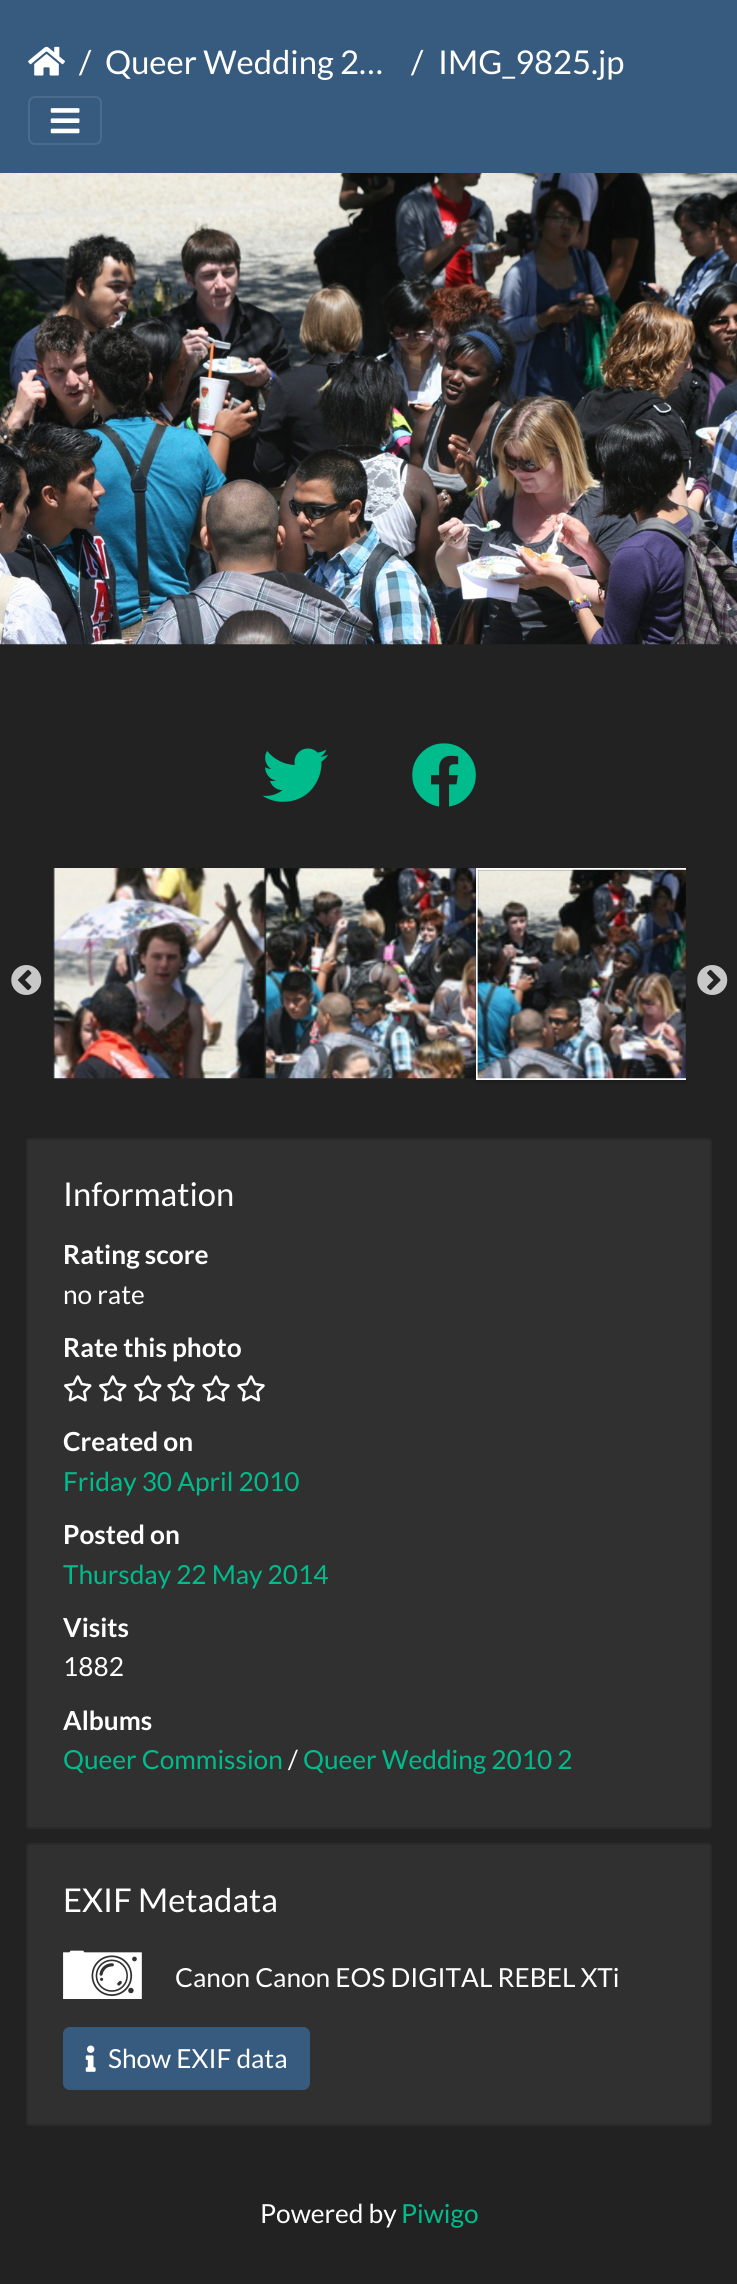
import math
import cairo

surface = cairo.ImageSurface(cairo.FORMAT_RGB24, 737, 2284)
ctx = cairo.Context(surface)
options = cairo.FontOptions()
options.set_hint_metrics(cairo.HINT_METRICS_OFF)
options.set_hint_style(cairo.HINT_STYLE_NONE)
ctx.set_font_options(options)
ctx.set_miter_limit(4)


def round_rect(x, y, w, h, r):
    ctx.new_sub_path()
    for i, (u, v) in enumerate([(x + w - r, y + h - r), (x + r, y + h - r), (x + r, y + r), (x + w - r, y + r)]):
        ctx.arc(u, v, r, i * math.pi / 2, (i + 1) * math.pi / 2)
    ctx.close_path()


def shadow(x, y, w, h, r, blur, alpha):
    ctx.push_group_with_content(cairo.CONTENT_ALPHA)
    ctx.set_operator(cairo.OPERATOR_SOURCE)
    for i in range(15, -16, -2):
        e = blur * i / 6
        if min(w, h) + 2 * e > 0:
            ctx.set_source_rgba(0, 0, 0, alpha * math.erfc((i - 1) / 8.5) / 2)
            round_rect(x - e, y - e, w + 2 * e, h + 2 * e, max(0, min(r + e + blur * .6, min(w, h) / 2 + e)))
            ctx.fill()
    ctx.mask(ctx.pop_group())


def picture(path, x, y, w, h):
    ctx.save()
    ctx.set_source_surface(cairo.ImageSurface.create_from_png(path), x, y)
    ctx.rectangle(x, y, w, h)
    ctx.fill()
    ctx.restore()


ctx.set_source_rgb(0.133, 0.133, 0.133)
ctx.paint()
ctx.set_source_rgb(0.216, 0.353, 0.498)
ctx.rectangle(0, 0, 737, 173)
ctx.fill()
picture("img1.png", 28, 46, 37, 30)
ctx.select_font_face("Lato")
ctx.set_font_size(32.75)
ctx.set_source_rgb(1, 1, 1)
ctx.move_to(79, 74)
ctx.show_text("/")
ctx.move_to(105, 74)
ctx.show_text("Queer Wedding 2…")
ctx.move_to(411, 74)
ctx.show_text("/")
ctx.move_to(438, 74)
ctx.show_text("IMG_9825.jp")
round_rect(29, 97, 72, 47, 6)
ctx.set_source_rgb(0.294, 0.42, 0.549)
ctx.stroke()
picture("img2.png", 50, 108, 30, 26)
picture("img3.png", 0, 173, 737, 472)
picture("img4.png", 262, 748, 66, 54)
picture("img5.png", 412, 743, 64, 64)
picture("img6.png", 11, 965, 31, 30)
picture("img7.png", 53, 868, 212, 211)
picture("img8.png", 265, 868, 211, 211)
ctx.save()
ctx.rectangle(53, 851, 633, 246)
ctx.clip()
ctx.set_source_rgb(0, 0, 0)
shadow(476, 870, 212, 212, 0, 2, 0.24)
ctx.restore()
ctx.save()
ctx.rectangle(53, 851, 633, 246)
ctx.clip()
ctx.rectangle(477, 869, 210, 210)
ctx.set_source_rgb(1, 1, 1)
ctx.stroke()
ctx.restore()
picture("img9.png", 477, 869, 209, 210)
picture("img10.png", 697, 965, 31, 30)
ctx.set_source_rgb(0.188, 0.188, 0.188)
round_rect(26, 1138, 686, 691, 4)
ctx.fill()
round_rect(27, 1139, 684, 689, 3)
ctx.set_source_rgba(0, 0, 0, 0.12)
ctx.stroke()
ctx.set_source_rgb(1, 1, 1)
ctx.move_to(63, 1206)
ctx.show_text("Information")
ctx.select_font_face("Lato", cairo.FONT_SLANT_NORMAL, cairo.FONT_WEIGHT_BOLD)
ctx.set_font_size(26.25)
ctx.move_to(63, 1264)
ctx.show_text("Rating score")
ctx.select_font_face("Lato")
ctx.move_to(63, 1304)
ctx.show_text("no rate")
ctx.select_font_face("Lato", cairo.FONT_SLANT_NORMAL, cairo.FONT_WEIGHT_BOLD)
ctx.move_to(63, 1357)
ctx.show_text("Rate this photo")
picture("img11.png", 64, 1375, 28, 27)
picture("img11.png", 99, 1375, 28, 27)
picture("img11.png", 134, 1375, 28, 27)
picture("img12.png", 167, 1375, 28, 27)
picture("img12.png", 202, 1375, 28, 27)
picture("img12.png", 237, 1375, 28, 27)
ctx.move_to(63, 1451)
ctx.show_text("Created on")
ctx.select_font_face("Lato")
ctx.set_source_rgb(0, 0.737, 0.549)
ctx.move_to(63, 1491)
ctx.show_text("Friday 30 April 2010")
ctx.select_font_face("Lato", cairo.FONT_SLANT_NORMAL, cairo.FONT_WEIGHT_BOLD)
ctx.set_source_rgb(1, 1, 1)
ctx.move_to(63, 1544)
ctx.show_text("Posted on")
ctx.select_font_face("Lato")
ctx.set_source_rgb(0, 0.737, 0.549)
ctx.move_to(63, 1584)
ctx.show_text("Thursday 22 May 2014")
ctx.select_font_face("Lato", cairo.FONT_SLANT_NORMAL, cairo.FONT_WEIGHT_BOLD)
ctx.set_source_rgb(1, 1, 1)
ctx.move_to(63, 1637)
ctx.show_text("Visits")
ctx.select_font_face("Lato")
ctx.move_to(63, 1676)
ctx.show_text("1882")
ctx.select_font_face("Lato", cairo.FONT_SLANT_NORMAL, cairo.FONT_WEIGHT_BOLD)
ctx.move_to(63, 1730)
ctx.show_text("Albums")
ctx.select_font_face("Lato")
ctx.set_source_rgb(0, 0.737, 0.549)
ctx.move_to(63, 1769)
ctx.show_text("Queer Commission")
ctx.set_source_rgb(1, 1, 1)
ctx.move_to(288, 1769)
ctx.show_text("/")
ctx.set_source_rgb(0, 0.737, 0.549)
ctx.move_to(303, 1769)
ctx.show_text("Queer Wedding 2010 2")
ctx.set_source_rgb(0.188, 0.188, 0.188)
round_rect(26, 1843, 686, 283, 4)
ctx.fill()
round_rect(27, 1844, 684, 281, 3)
ctx.set_source_rgba(0, 0, 0, 0.12)
ctx.stroke()
ctx.set_font_size(32.75)
ctx.set_source_rgb(1, 1, 1)
ctx.move_to(63, 1912)
ctx.show_text("EXIF Metadata")
picture("img13.png", 63, 1950, 79, 49)
ctx.set_font_size(26.25)
ctx.move_to(175, 1987)
ctx.show_text("Canon Canon EOS DIGITAL REBEL XTi")
ctx.set_source_rgb(0.216, 0.353, 0.498)
round_rect(64, 2028, 245, 61, 6)
ctx.fill_preserve()
ctx.stroke()
picture("img14.png", 85, 2045, 11, 27)
ctx.set_source_rgb(1, 1, 1)
ctx.move_to(108, 2068)
ctx.show_text("Show EXIF data")
ctx.move_to(260, 2223)
ctx.show_text("Powered by")
ctx.set_source_rgb(0, 0.737, 0.549)
ctx.move_to(401, 2223)
ctx.show_text("Piwigo")
surface.write_to_png("page.png")
